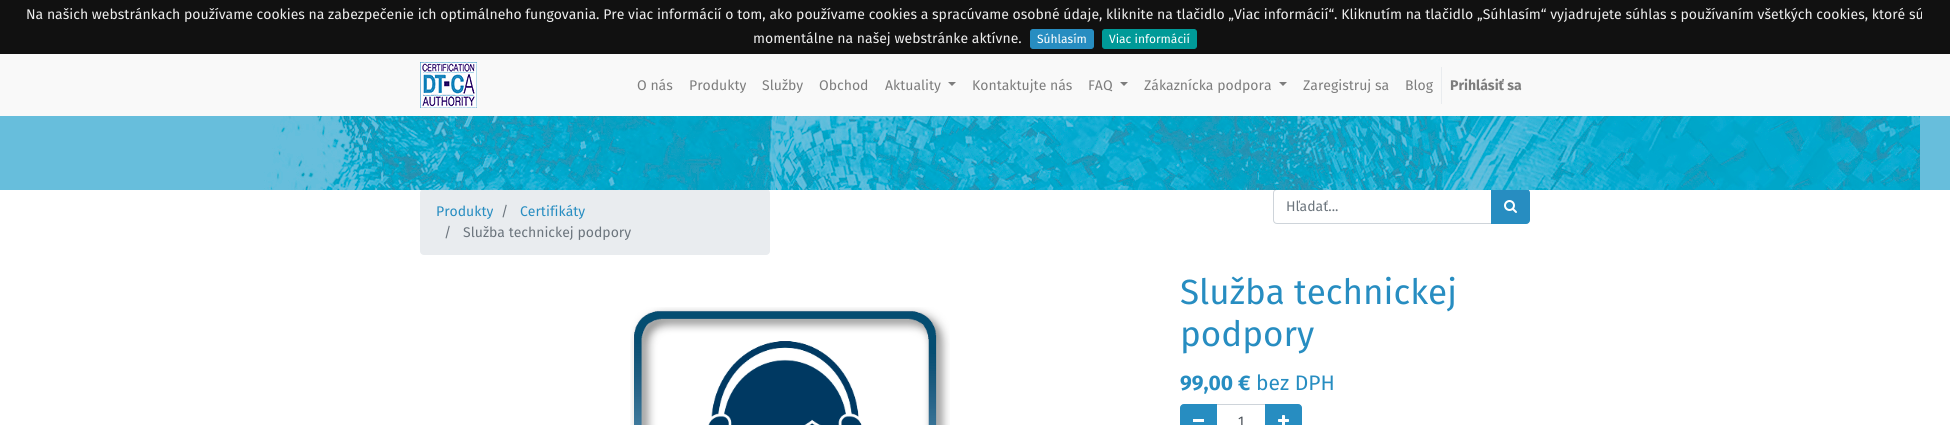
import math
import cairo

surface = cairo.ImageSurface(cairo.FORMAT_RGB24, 1950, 425)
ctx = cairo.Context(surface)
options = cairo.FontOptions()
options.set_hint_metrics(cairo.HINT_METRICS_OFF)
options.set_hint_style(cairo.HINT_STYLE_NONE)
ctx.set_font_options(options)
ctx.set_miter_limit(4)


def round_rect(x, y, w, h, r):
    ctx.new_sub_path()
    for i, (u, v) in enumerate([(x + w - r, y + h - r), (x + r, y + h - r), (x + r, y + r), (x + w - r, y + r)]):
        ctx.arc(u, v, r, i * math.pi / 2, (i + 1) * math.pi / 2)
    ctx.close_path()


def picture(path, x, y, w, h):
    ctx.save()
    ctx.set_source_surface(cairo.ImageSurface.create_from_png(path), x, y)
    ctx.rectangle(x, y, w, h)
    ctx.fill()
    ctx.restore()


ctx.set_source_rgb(1, 1, 1)
ctx.paint()
ctx.set_source_rgb(0.067, 0.067, 0.067)
ctx.rectangle(0, 0, 1950, 54)
ctx.fill()
ctx.select_font_face("Fira Sans")
ctx.set_font_size(14)
ctx.set_source_rgb(0.933, 0.933, 0.933)
ctx.move_to(26, 19)
ctx.show_text("Na našich webstránkach používame cookies na zabezpečenie ich optimálneho fungovania. Pre viac informácií o tom, ako používame cookies a spracúvame osobné údaje, kliknite na tlačidlo „Viac informácií“. Kliknutím na tlačidlo „Súhlasím“ vyjadrujete súhlas s používaním všetkých cookies, ktoré sú")
ctx.move_to(753, 43)
ctx.show_text("momentálne na našej webstránke aktívne.")
ctx.set_source_rgb(0.153, 0.553, 0.757)
round_rect(1030.5, 29.5, 63, 19, 2.5)
ctx.fill_preserve()
ctx.set_line_width(1)
ctx.stroke()
ctx.set_font_size(12)
ctx.set_source_rgb(1, 1, 1)
ctx.move_to(1037, 43)
ctx.show_text("Súhlasím")
ctx.set_source_rgb(0, 0.604, 0.596)
round_rect(1102.5, 29.5, 94, 19, 2.5)
ctx.fill_preserve()
ctx.stroke()
ctx.set_source_rgb(1, 1, 1)
ctx.move_to(1109, 43)
ctx.show_text("Viac informácií")
ctx.set_source_rgb(0.976, 0.976, 0.976)
ctx.rectangle(0, 54, 1950, 62)
ctx.fill()
picture("img1.png", 420, 62, 57, 46)
ctx.set_font_size(14)
ctx.set_source_rgb(0.49, 0.49, 0.49)
ctx.move_to(637, 90)
ctx.show_text("O nás")
ctx.move_to(689, 90)
ctx.show_text("Produkty")
ctx.move_to(762, 90)
ctx.show_text("Služby")
ctx.move_to(819, 90)
ctx.show_text("Obchod")
ctx.move_to(885, 90)
ctx.show_text("Aktuality")
ctx.new_path()
ctx.move_to(948, 82)
ctx.line_to(956, 82)
ctx.line_to(952, 86)
ctx.close_path()
ctx.fill()
ctx.move_to(972, 90)
ctx.show_text("Kontaktujte nás")
ctx.move_to(1088, 90)
ctx.show_text("FAQ")
ctx.new_path()
ctx.move_to(1120, 82)
ctx.line_to(1128, 82)
ctx.line_to(1124, 86)
ctx.close_path()
ctx.fill()
ctx.move_to(1144, 90)
ctx.show_text("Zákaznícka podpora")
ctx.new_path()
ctx.move_to(1279, 82)
ctx.line_to(1287, 82)
ctx.line_to(1283, 86)
ctx.close_path()
ctx.fill()
ctx.move_to(1303, 90)
ctx.show_text("Zaregistruj sa")
ctx.move_to(1405, 90)
ctx.show_text("Blog")
ctx.set_source_rgb(0.914, 0.925, 0.937)
ctx.rectangle(1441, 67, 1, 37)
ctx.fill()
ctx.select_font_face("Fira Sans", cairo.FONT_SLANT_NORMAL, cairo.FONT_WEIGHT_BOLD)
ctx.set_source_rgb(0.49, 0.49, 0.49)
ctx.move_to(1450, 90)
ctx.show_text("Prihlásiť sa")
ctx.set_source_rgb(0.914, 0.925, 0.937)
round_rect(420, 189, 350, 66, 4)
ctx.fill()
ctx.new_path()
ctx.move_to(1277, 189.5)
ctx.line_to(1491.5, 189.5)
ctx.line_to(1491.5, 223.5)
ctx.line_to(1277, 223.5)
ctx.curve_to(1275, 223.5, 1273.5, 222, 1273.5, 220)
ctx.line_to(1273.5, 193)
ctx.curve_to(1273.5, 191, 1275, 189.5, 1277, 189.5)
ctx.close_path()
ctx.set_source_rgb(0.808, 0.831, 0.855)
ctx.stroke()
ctx.set_source_rgb(0.153, 0.553, 0.757)
ctx.new_path()
ctx.move_to(1491.5, 189.5)
ctx.line_to(1526, 189.5)
ctx.curve_to(1528, 189.5, 1529.5, 191, 1529.5, 193)
ctx.line_to(1529.5, 220)
ctx.curve_to(1529.5, 222, 1528, 223.5, 1526, 223.5)
ctx.line_to(1491.5, 223.5)
ctx.close_path()
ctx.fill_preserve()
ctx.stroke()
picture("img2.png", 0, 116, 1950, 74)
ctx.select_font_face("Fira Sans")
ctx.move_to(436, 216)
ctx.show_text("Produkty")
ctx.set_source_rgb(0.424, 0.459, 0.49)
ctx.move_to(501, 216)
ctx.show_text("/")
ctx.set_source_rgb(0.153, 0.553, 0.757)
ctx.move_to(520, 216)
ctx.show_text("Certifikáty")
ctx.set_source_rgb(0.424, 0.459, 0.49)
ctx.move_to(444, 237)
ctx.show_text("/")
ctx.move_to(463, 237)
ctx.show_text("Služba technickej podpory")
ctx.move_to(1286, 211)
ctx.show_text("Hľadať...")
picture("img3.png", 1504, 200, 13, 13)
picture("img4.png", 630, 307, 320, 118)
ctx.set_font_size(35)
ctx.set_source_rgb(0.153, 0.553, 0.757)
ctx.move_to(1180, 304)
ctx.show_text("Služba technickej")
ctx.move_to(1180, 346)
ctx.show_text("podpory")
ctx.select_font_face("Fira Sans", cairo.FONT_SLANT_NORMAL, cairo.FONT_WEIGHT_BOLD)
ctx.set_font_size(21)
ctx.move_to(1180, 390)
ctx.show_text("99,00 €")
ctx.select_font_face("Fira Sans")
ctx.move_to(1256, 390)
ctx.show_text("bez DPH")
ctx.rectangle(1216.5, 404.5, 49, 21)
ctx.set_source_rgb(0.808, 0.831, 0.855)
ctx.stroke()
ctx.set_source_rgb(0.153, 0.553, 0.757)
ctx.new_path()
ctx.move_to(1184, 404.5)
ctx.line_to(1216.5, 404.5)
ctx.line_to(1216.5, 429.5)
ctx.line_to(1184, 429.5)
ctx.curve_to(1182, 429.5, 1180.5, 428, 1180.5, 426)
ctx.line_to(1180.5, 408)
ctx.curve_to(1180.5, 406, 1182, 404.5, 1184, 404.5)
ctx.close_path()
ctx.fill_preserve()
ctx.stroke()
ctx.set_source_rgb(1, 1, 1)
ctx.rectangle(1193, 419, 11, 3)
ctx.fill()
ctx.set_font_size(14)
ctx.set_source_rgb(0.286, 0.314, 0.341)
ctx.move_to(1238, 426)
ctx.show_text("1")
ctx.set_source_rgb(0.153, 0.553, 0.757)
ctx.new_path()
ctx.move_to(1265.5, 404.5)
ctx.line_to(1298, 404.5)
ctx.curve_to(1300, 404.5, 1301.5, 406, 1301.5, 408)
ctx.line_to(1301.5, 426)
ctx.curve_to(1301.5, 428, 1300, 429.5, 1298, 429.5)
ctx.line_to(1265.5, 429.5)
ctx.close_path()
ctx.fill_preserve()
ctx.stroke()
picture("img5.png", 1278, 415, 11, 10)
surface.write_to_png("page.png")
